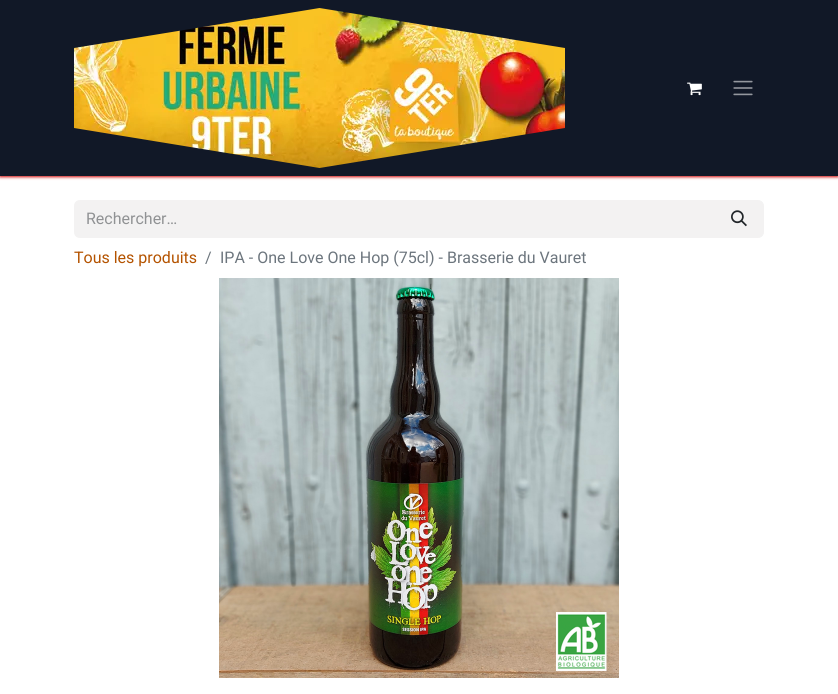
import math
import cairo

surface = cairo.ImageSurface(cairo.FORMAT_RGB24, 838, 694)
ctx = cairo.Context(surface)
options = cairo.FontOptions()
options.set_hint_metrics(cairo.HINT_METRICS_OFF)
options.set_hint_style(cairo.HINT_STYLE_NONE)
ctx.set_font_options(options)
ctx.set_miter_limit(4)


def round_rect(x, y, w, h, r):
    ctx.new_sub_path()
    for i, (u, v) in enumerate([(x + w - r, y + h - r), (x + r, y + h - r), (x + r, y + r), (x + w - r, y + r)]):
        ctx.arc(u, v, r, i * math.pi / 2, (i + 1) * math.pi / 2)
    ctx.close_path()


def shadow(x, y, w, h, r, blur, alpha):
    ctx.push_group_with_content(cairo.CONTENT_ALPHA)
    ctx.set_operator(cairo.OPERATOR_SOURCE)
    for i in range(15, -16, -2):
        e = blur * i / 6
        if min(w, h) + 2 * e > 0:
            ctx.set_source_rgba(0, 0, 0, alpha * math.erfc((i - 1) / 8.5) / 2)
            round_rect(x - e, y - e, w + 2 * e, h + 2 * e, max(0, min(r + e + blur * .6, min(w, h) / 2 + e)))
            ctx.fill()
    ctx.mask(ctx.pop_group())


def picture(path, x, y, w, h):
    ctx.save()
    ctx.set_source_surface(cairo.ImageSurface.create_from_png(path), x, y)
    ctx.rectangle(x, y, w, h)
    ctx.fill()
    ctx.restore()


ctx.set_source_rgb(1, 1, 1)
ctx.paint()
ctx.set_source_rgb(0.808, 0, 0)
shadow(0, 1, 838, 176, 0, 1.5, 1)
ctx.set_source_rgb(0.067, 0.094, 0.153)
ctx.rectangle(0, 0, 838, 176)
ctx.fill()
picture("img1.png", 74, 8, 491, 160)
picture("img2.png", 687, 82, 15, 14)
picture("img3.png", 733, 80, 20, 16)
ctx.set_source_rgb(0.953, 0.949, 0.949)
ctx.new_path()
ctx.move_to(80, 200)
ctx.line_to(715, 200)
ctx.line_to(715, 238)
ctx.line_to(80, 238)
ctx.curve_to(76.5, 238, 74, 235.5, 74, 232)
ctx.line_to(74, 206)
ctx.curve_to(74, 202.5, 76.5, 200, 80, 200)
ctx.close_path()
ctx.fill()
ctx.select_font_face("Roboto")
ctx.set_font_size(16)
ctx.set_source_rgb(0.565, 0.573, 0.58)
ctx.move_to(86, 224)
ctx.show_text("Rechercher…")
ctx.set_source_rgb(0.953, 0.949, 0.949)
ctx.new_path()
ctx.move_to(714.5, 200.5)
ctx.line_to(758, 200.5)
ctx.curve_to(761, 200.5, 763.5, 203, 763.5, 206)
ctx.line_to(763.5, 232)
ctx.curve_to(763.5, 235, 761, 237.5, 758, 237.5)
ctx.line_to(714.5, 237.5)
ctx.close_path()
ctx.fill_preserve()
ctx.set_line_width(1)
ctx.stroke()
picture("img4.png", 731, 210, 16, 17)
ctx.set_source_rgb(0.706, 0.325, 0)
ctx.move_to(74, 263)
ctx.show_text("Tous les produits")
ctx.set_source_rgb(0.424, 0.459, 0.49)
ctx.move_to(205, 263)
ctx.show_text("/")
ctx.move_to(220, 263)
ctx.show_text("IPA - One Love One Hop (75cl) - Brasserie du Vauret")
picture("img5.png", 219, 278, 400, 400)
surface.write_to_png("page.png")
